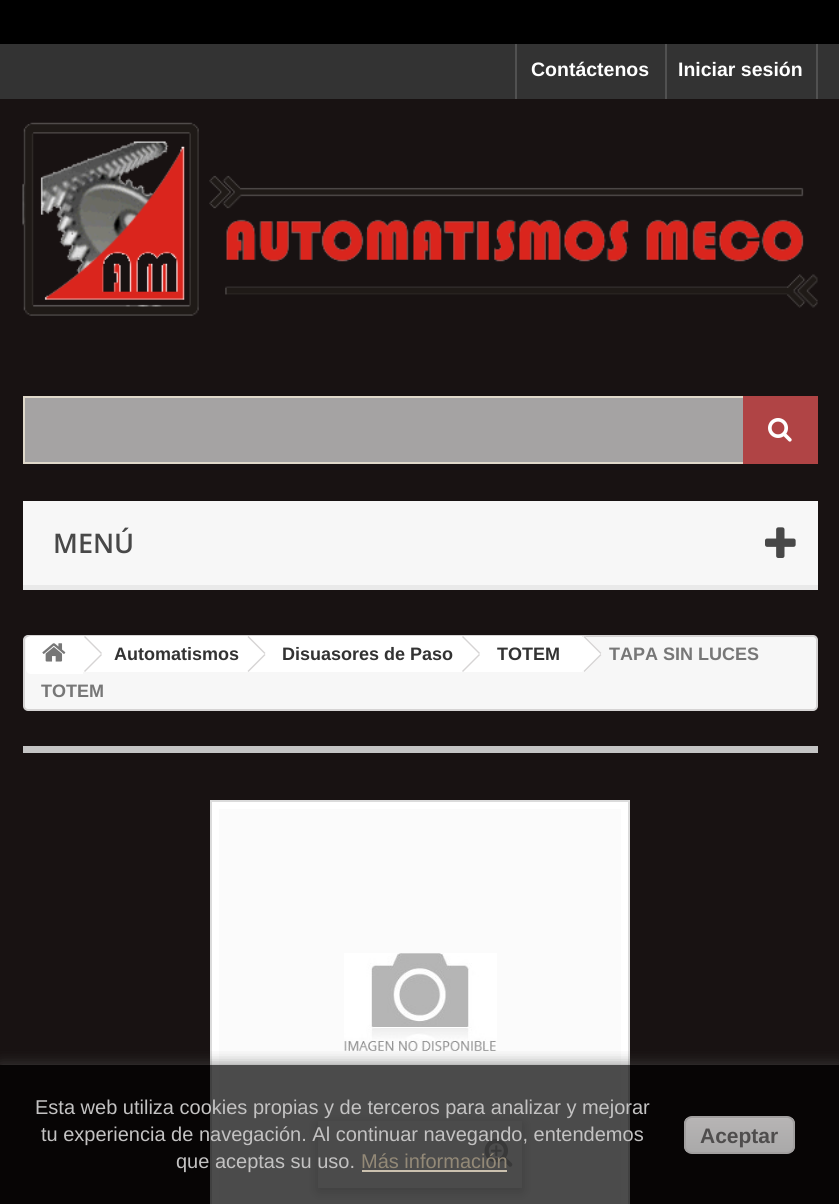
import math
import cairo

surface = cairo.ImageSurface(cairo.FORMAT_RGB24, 839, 1204)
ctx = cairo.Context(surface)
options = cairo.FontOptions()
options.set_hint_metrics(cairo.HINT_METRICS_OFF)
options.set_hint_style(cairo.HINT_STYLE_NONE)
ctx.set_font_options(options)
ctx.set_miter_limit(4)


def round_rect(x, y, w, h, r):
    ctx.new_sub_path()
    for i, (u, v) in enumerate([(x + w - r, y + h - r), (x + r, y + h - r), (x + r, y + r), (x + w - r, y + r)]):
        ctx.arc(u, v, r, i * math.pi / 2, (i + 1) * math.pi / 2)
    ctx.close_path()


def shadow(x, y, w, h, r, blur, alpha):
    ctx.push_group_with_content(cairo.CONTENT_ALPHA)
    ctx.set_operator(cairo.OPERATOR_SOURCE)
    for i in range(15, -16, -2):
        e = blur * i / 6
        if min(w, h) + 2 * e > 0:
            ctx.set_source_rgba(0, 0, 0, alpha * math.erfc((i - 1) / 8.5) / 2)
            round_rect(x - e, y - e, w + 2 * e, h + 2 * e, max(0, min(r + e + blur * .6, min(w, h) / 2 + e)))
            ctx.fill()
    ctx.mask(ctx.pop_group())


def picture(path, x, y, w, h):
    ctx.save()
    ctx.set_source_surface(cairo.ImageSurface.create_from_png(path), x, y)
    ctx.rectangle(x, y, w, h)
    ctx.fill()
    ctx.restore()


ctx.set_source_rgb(0.094, 0.071, 0.071)
ctx.paint()
ctx.set_source_rgb(0, 0, 0)
ctx.rectangle(0, 0, 839, 44)
ctx.fill()
ctx.set_source_rgb(0.2, 0.2, 0.2)
ctx.rectangle(0, 44, 839, 55)
ctx.fill()
ctx.set_source_rgb(0.318, 0.318, 0.318)
ctx.rectangle(515, 44, 2, 55)
ctx.fill()
ctx.select_font_face("Liberation Sans", cairo.FONT_SLANT_NORMAL, cairo.FONT_WEIGHT_BOLD)
ctx.set_font_size(19.5)
ctx.set_source_rgb(1, 1, 1)
ctx.move_to(531, 76)
ctx.show_text("Contáctenos")
ctx.set_source_rgb(0.318, 0.318, 0.318)
ctx.rectangle(816, 44, 2, 55)
ctx.fill()
ctx.rectangle(665, 44, 2, 55)
ctx.fill()
ctx.set_source_rgb(1, 1, 1)
ctx.move_to(678, 76)
ctx.show_text("Iniciar sesión")
picture("img1.png", 22, 122, 796, 194)
ctx.set_source_rgb(0.647, 0.639, 0.639)
ctx.rectangle(25, 398, 718, 64)
ctx.fill()
ctx.rectangle(24, 397, 793, 66)
ctx.set_source_rgb(0.875, 0.847, 0.792)
ctx.stroke()
ctx.set_source_rgb(0.69, 0.267, 0.271)
ctx.rectangle(743, 396, 75, 68)
ctx.fill()
picture("img2.png", 768, 418, 24, 24)
ctx.set_source_rgb(0.965, 0.965, 0.965)
ctx.rectangle(23, 501, 795, 84)
ctx.fill()
ctx.set_source_rgb(0.914, 0.914, 0.914)
ctx.rectangle(23, 585, 795, 5)
ctx.fill()
ctx.select_font_face("Open Sans SemiBold")
ctx.set_font_size(27)
ctx.set_source_rgb(0.282, 0.282, 0.282)
ctx.move_to(53, 553)
ctx.show_text("MENÚ")
picture("img3.png", 765, 527, 31, 31)
ctx.set_source_rgb(0.965, 0.965, 0.965)
round_rect(24, 636, 793, 74, 4)
ctx.fill_preserve()
ctx.set_source_rgb(0.839, 0.831, 0.831)
ctx.stroke()
ctx.set_source_rgb(1, 1, 1)
ctx.new_path()
ctx.move_to(31, 636)
ctx.line_to(83, 636)
ctx.line_to(83, 674)
ctx.line_to(31, 674)
ctx.curve_to(28, 674, 26, 672, 26, 669)
ctx.line_to(26, 641)
ctx.curve_to(26, 638, 28, 636, 31, 636)
ctx.close_path()
ctx.fill()
picture("img4.png", 42, 643, 24, 19)
ctx.rectangle(83, 636, 166, 36)
ctx.fill()
ctx.set_source_rgb(0.839, 0.831, 0.831)
ctx.new_path()
ctx.move_to(85, 636)
ctx.line_to(102, 653)
ctx.line_to(101, 654)
ctx.line_to(84, 637)
ctx.close_path()
ctx.move_to(101, 654)
ctx.line_to(102, 655)
ctx.line_to(85, 672)
ctx.line_to(84, 671)
ctx.close_path()
ctx.fill()
ctx.select_font_face("Liberation Sans", cairo.FONT_SLANT_NORMAL, cairo.FONT_WEIGHT_BOLD)
ctx.set_font_size(18)
ctx.set_source_rgb(0.2, 0.2, 0.2)
ctx.move_to(114, 660)
ctx.show_text("Automatismos")
ctx.set_source_rgb(1, 1, 1)
ctx.new_path()
ctx.move_to(264.5, 637)
ctx.line_to(279.5, 652)
ctx.curve_to(280.5, 653, 280.5, 655, 279.5, 656)
ctx.line_to(264.5, 671)
ctx.curve_to(263.5, 672, 261.5, 672, 260.5, 671)
ctx.line_to(245.5, 656)
ctx.curve_to(244.5, 655, 244.5, 653, 245.5, 652)
ctx.line_to(260.5, 637)
ctx.curve_to(261.5, 636, 263.5, 636, 264.5, 637)
ctx.close_path()
ctx.fill()
ctx.rectangle(249, 636, 215, 36)
ctx.fill()
ctx.set_source_rgb(0.839, 0.831, 0.831)
ctx.new_path()
ctx.move_to(248.5, 636)
ctx.line_to(265.5, 653)
ctx.line_to(264.5, 654)
ctx.line_to(247.5, 637)
ctx.close_path()
ctx.move_to(264.5, 654)
ctx.line_to(265.5, 655)
ctx.line_to(248.5, 672)
ctx.line_to(247.5, 671)
ctx.close_path()
ctx.fill()
ctx.set_source_rgb(0.2, 0.2, 0.2)
ctx.move_to(282, 660)
ctx.show_text("Disuasores de Paso")
ctx.set_source_rgb(1, 1, 1)
ctx.new_path()
ctx.move_to(479.5, 637)
ctx.line_to(494, 652)
ctx.curve_to(495.5, 653, 495.5, 655, 494, 656)
ctx.line_to(479.5, 671)
ctx.curve_to(478, 672, 476, 672, 475, 671)
ctx.line_to(460, 656)
ctx.curve_to(459, 655, 459, 653, 460, 652)
ctx.line_to(475, 637)
ctx.curve_to(476, 636, 478, 636, 479.5, 637)
ctx.close_path()
ctx.fill()
ctx.rectangle(464, 636, 118, 36)
ctx.fill()
ctx.set_source_rgb(0.839, 0.831, 0.831)
ctx.new_path()
ctx.move_to(463, 636)
ctx.line_to(480, 653)
ctx.line_to(479, 654)
ctx.line_to(462, 637)
ctx.close_path()
ctx.move_to(479, 654)
ctx.line_to(480, 655)
ctx.line_to(463, 672)
ctx.line_to(462, 671)
ctx.close_path()
ctx.fill()
ctx.set_source_rgb(0.2, 0.2, 0.2)
ctx.move_to(497, 660)
ctx.show_text("TOTEM")
ctx.set_source_rgb(1, 1, 1)
ctx.new_path()
ctx.move_to(586, 637)
ctx.line_to(600.5, 652)
ctx.curve_to(602, 653, 602, 655, 600.5, 656)
ctx.line_to(586, 671)
ctx.curve_to(584.5, 672, 582.5, 672, 581.5, 671)
ctx.line_to(566.5, 656)
ctx.curve_to(565.5, 655, 565.5, 653, 566.5, 652)
ctx.line_to(581.5, 637)
ctx.curve_to(582.5, 636, 584.5, 636, 586, 637)
ctx.close_path()
ctx.fill()
ctx.set_source_rgb(0.839, 0.831, 0.831)
ctx.new_path()
ctx.move_to(584.5, 636)
ctx.line_to(601.5, 653)
ctx.line_to(600.5, 654)
ctx.line_to(583.5, 637)
ctx.close_path()
ctx.move_to(600.5, 654)
ctx.line_to(601.5, 655)
ctx.line_to(584.5, 672)
ctx.line_to(583.5, 671)
ctx.close_path()
ctx.fill()
ctx.set_source_rgb(0.467, 0.467, 0.467)
ctx.move_to(609, 660)
ctx.show_text("TAPA SIN LUCES")
ctx.move_to(41, 697)
ctx.show_text("TOTEM")
ctx.set_source_rgb(0.769, 0.769, 0.769)
ctx.rectangle(23, 746, 795, 7)
ctx.fill()
ctx.set_source_rgb(1, 1, 1)
ctx.rectangle(211, 801, 418, 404)
ctx.fill_preserve()
ctx.set_source_rgb(0.859, 0.859, 0.859)
ctx.stroke()
ctx.set_source_rgb(0.984, 0.984, 0.984)
ctx.rectangle(219, 809, 402, 395)
ctx.fill()
picture("img5.png", 344, 953, 153, 98)
ctx.set_source_rgb(0, 0, 0)
shadow(318, 1124, 204, 67, 0, 6, 0.16)
ctx.set_source_rgb(0.992, 0.992, 0.992)
ctx.rectangle(318, 1121, 204, 67)
ctx.fill()
picture("img6.png", 484, 1139, 29, 28)
ctx.save()
ctx.rectangle(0, 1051, 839, 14)
ctx.clip()
ctx.set_source_rgb(0.298, 0.302, 0.298)
shadow(0, 1065, 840, 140, 0, 7.5, 0.7)
ctx.restore()
ctx.set_source_rgba(0, 0, 0, 0.7)
ctx.rectangle(0, 1065, 839, 139)
ctx.fill()
ctx.select_font_face("Liberation Sans")
ctx.set_font_size(20)
ctx.set_source_rgb(0.765, 0.761, 0.761)
ctx.move_to(35, 1114)
ctx.show_text("Esta web utiliza cookies propias y de terceros para analizar y mejorar")
ctx.move_to(41, 1141)
ctx.show_text("tu experiencia de navegación. Al continuar navegando, entendemos")
ctx.move_to(176, 1168)
ctx.show_text("que aceptas su uso.")
ctx.set_source_rgb(0.576, 0.537, 0.467)
ctx.move_to(361, 1168)
ctx.show_text("Más información")
ctx.set_source_rgb(0.796, 0.757, 0.686)
ctx.rectangle(362, 1170, 145, 2)
ctx.fill()
ctx.save()
round_rect(684, 1116, 111, 38, 8)
ctx.clip()
gradient = cairo.LinearGradient(686, 1118, 686, 1152)
gradient.add_color_stop_rgba(0.05, 0.714, 0.706, 0.706, 1)
gradient.add_color_stop_rgba(1, 0.667, 0.663, 0.663, 1)
ctx.set_source(gradient)
ctx.rectangle(684, 1118, 111, 34)
ctx.fill()
ctx.restore()
ctx.set_source_rgb(0.729, 0.722, 0.722)
ctx.new_path()
ctx.move_to(692, 1119)
ctx.line_to(788, 1119)
ctx.curve_to(791, 1119, 794, 1122, 794, 1125)
ctx.curve_to(794, 1114, 778, 1118, 772, 1118)
ctx.line_to(708, 1118)
ctx.curve_to(702, 1118, 686, 1114, 686, 1125)
ctx.curve_to(686, 1122, 688, 1119, 692, 1119)
ctx.close_path()
ctx.fill()
round_rect(685, 1117, 109, 36, 7)
ctx.set_source_rgb(0.631, 0.624, 0.624)
ctx.stroke()
ctx.select_font_face("Liberation Sans", cairo.FONT_SLANT_NORMAL, cairo.FONT_WEIGHT_BOLD)
ctx.set_font_size(21)
ctx.set_source_rgb(0.31, 0.302, 0.302)
ctx.move_to(700, 1143)
ctx.show_text("Aceptar")
surface.write_to_png("page.png")
